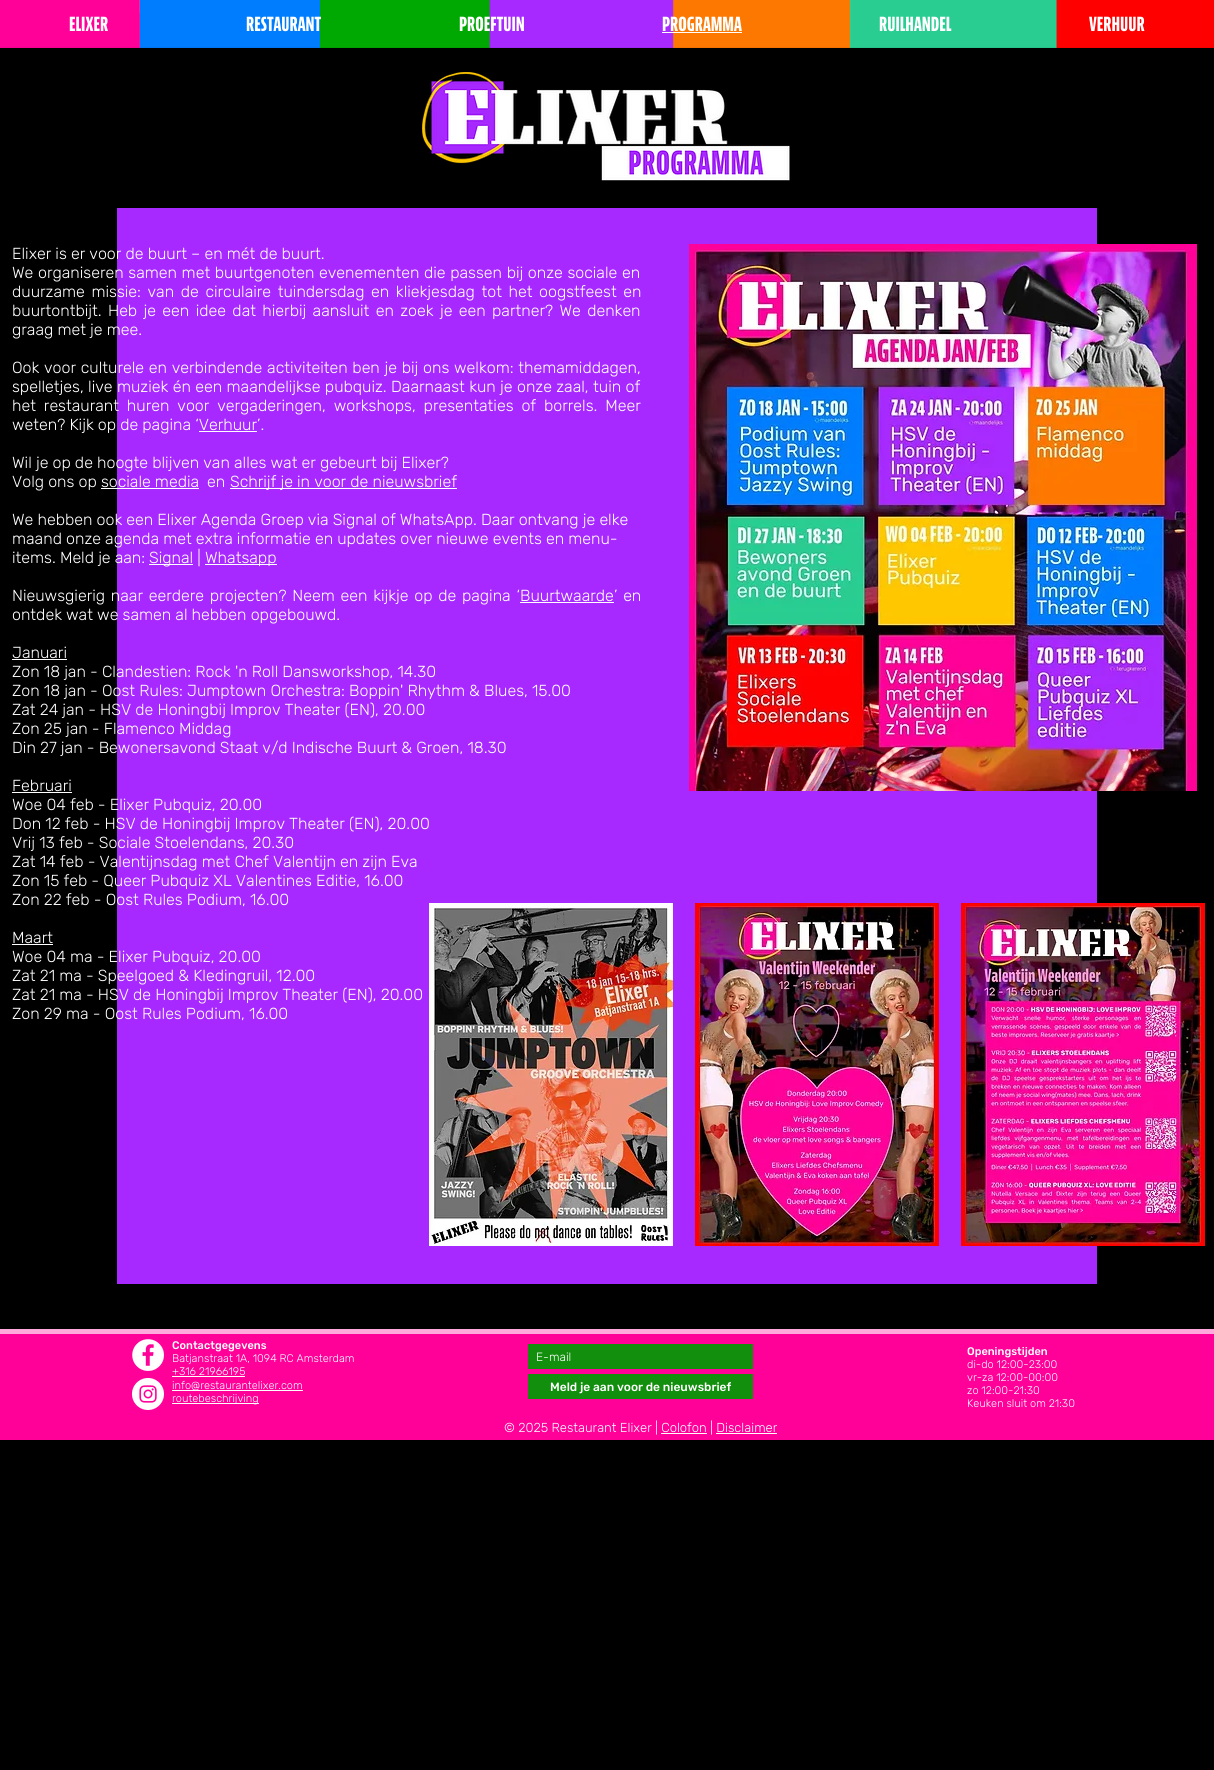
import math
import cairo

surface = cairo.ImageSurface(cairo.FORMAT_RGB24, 1214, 1770)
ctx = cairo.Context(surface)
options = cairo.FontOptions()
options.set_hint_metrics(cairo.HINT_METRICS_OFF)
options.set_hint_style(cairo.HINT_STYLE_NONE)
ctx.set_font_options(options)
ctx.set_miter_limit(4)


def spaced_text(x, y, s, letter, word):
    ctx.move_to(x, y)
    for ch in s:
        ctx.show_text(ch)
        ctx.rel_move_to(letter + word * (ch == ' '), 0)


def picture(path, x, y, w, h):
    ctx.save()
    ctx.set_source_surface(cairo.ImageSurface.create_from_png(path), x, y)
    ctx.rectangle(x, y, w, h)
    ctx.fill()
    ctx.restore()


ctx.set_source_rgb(0, 0, 0)
ctx.paint()
picture("img1.png", 0, 0, 1214, 48)
ctx.select_font_face("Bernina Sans", cairo.FONT_SLANT_NORMAL, cairo.FONT_WEIGHT_BOLD)
ctx.set_font_size(19)
ctx.set_source_rgb(1, 1, 1)
ctx.move_to(69, 31)
ctx.show_text("ELIXER")
ctx.move_to(246, 31)
ctx.show_text("RESTAURANT")
ctx.move_to(459, 31)
ctx.show_text("PROEFTUIN")
ctx.move_to(662, 31)
ctx.show_text("PROGRAMMA")
ctx.rectangle(662, 32, 80, 1)
ctx.fill()
ctx.move_to(879, 31)
ctx.show_text("RUILHANDEL")
ctx.move_to(1089, 31)
ctx.show_text("VERHUUR")
picture("img2.png", 422, 72, 368, 109)
ctx.set_source_rgb(0.655, 0.161, 1)
ctx.rectangle(117, 208, 980, 1076)
ctx.fill()
ctx.select_font_face("Rubik Light")
ctx.set_font_size(16)
ctx.set_source_rgb(1, 1, 1)
ctx.move_to(12, 259)
ctx.show_text("Elixer is er voor de buurt – en mét de buurt.")
spaced_text(12, 278, "We organiseren samen met buurtgenoten evenementen die passen bij onze sociale en", 0, 0.5)
spaced_text(12, 297, "duurzame missie: van de circulaire tuindersdag en kliekjesdag tot het oogstfeest en", 0, 2.5)
spaced_text(12, 316, "buurtontbijt. Heb je een idee dat hierbij aansluit en zoek je een partner? We denken", 0, 2.25)
ctx.move_to(12, 335)
ctx.show_text("graag met je mee.")
spaced_text(12, 373, "Ook voor culturele en verbindende activiteiten ben je bij ons welkom: themamiddagen,", 0, 0.6)
spaced_text(12, 392, "spelletjes, live muziek én een maandelijkse pubquiz. Daarnaast kun je onze zaal, tuin of", 0, 0.25)
spaced_text(12, 411, "het restaurant huren voor vergaderingen, workshops, presentaties of borrels. Meer", 0, 3.75)
ctx.move_to(12, 430)
ctx.show_text("weten? Kijk op de pagina ‘Verhuur’.")
ctx.rectangle(199, 431, 58, 1)
ctx.fill()
ctx.move_to(12, 468)
ctx.show_text("Wil je op de hoogte blijven van alles wat er gebeurt bij Elixer?")
ctx.move_to(12, 487)
ctx.show_text("Volg ons op sociale media")
ctx.rectangle(101, 488, 98, 1)
ctx.fill()
ctx.move_to(207, 487)
ctx.show_text("en")
ctx.rectangle(230, 488, 227, 1)
ctx.fill()
ctx.move_to(230, 487)
ctx.show_text("Schrijf je in voor de nieuwsbrief")
ctx.move_to(12, 525)
ctx.show_text("We hebben ook een Elixer Agenda Groep via Signal of WhatsApp. Daar ontvang je elke")
ctx.move_to(12, 544)
ctx.show_text("maand onze agenda met extra informatie en updates over nieuwe events en menu-")
ctx.move_to(12, 563)
ctx.show_text("items. Meld je aan:")
ctx.rectangle(149, 564, 44, 1)
ctx.fill()
ctx.move_to(149, 563)
ctx.show_text("Signal |")
ctx.rectangle(205, 564, 72, 1)
ctx.fill()
ctx.move_to(205, 563)
ctx.show_text("Whatsapp")
spaced_text(12, 601, "Nieuwsgierig naar eerdere projecten? Neem een kijkje op de pagina ‘", 0, 1.6)
ctx.rectangle(520, 602, 94, 1)
ctx.fill()
ctx.move_to(520, 601)
ctx.show_text("Buurtwaarde")
spaced_text(614, 601, "’ en", 0, 1.6)
ctx.move_to(12, 620)
ctx.show_text("ontdek wat we samen al hebben opgebouwd.")
ctx.move_to(12, 658)
ctx.show_text("Januari")
ctx.rectangle(12, 659, 55, 1)
ctx.fill()
ctx.select_font_face("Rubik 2 Light")
ctx.move_to(12, 677)
ctx.show_text("Zon 18 jan - Clandestien: Rock 'n Roll Dansworkshop, 14.30")
ctx.move_to(12, 696)
ctx.show_text("Zon 18 jan - Oost Rules: Jumptown Orchestra: Boppin' Rhythm & Blues, 15.00")
ctx.move_to(12, 715)
ctx.show_text("Zat 24 jan - HSV de Honingbij Improv Theater (EN), 20.00")
ctx.move_to(12, 734)
ctx.show_text("Zon 25 jan - Flamenco Middag")
ctx.move_to(12, 753)
ctx.show_text("Din 27 jan - Bewonersavond Staat v/d Indische Buurt & Groen, 18.30")
ctx.move_to(12, 791)
ctx.show_text("Februari")
ctx.rectangle(12, 792, 60, 1)
ctx.fill()
ctx.move_to(12, 810)
ctx.show_text("Woe 04 feb - Elixer Pubquiz, 20.00")
ctx.move_to(12, 829)
ctx.show_text("Don 12 feb - HSV de Honingbij Improv Theater (EN), 20.00")
ctx.move_to(12, 848)
ctx.show_text("Vrij 13 feb - Sociale Stoelendans, 20.30")
ctx.move_to(12, 867)
ctx.show_text("Zat 14 feb - Valentijnsdag met Chef Valentijn en zijn Eva")
ctx.move_to(12, 886)
ctx.show_text("Zon 15 feb - Queer Pubquiz XL Valentines Editie, 16.00")
ctx.move_to(12, 905)
ctx.show_text("Zon 22 feb - Oost Rules Podium, 16.00")
ctx.move_to(12, 943)
ctx.show_text("Maart")
ctx.rectangle(12, 944, 41, 1)
ctx.fill()
ctx.move_to(12, 962)
ctx.show_text("Woe 04 ma - Elixer Pubquiz, 20.00")
ctx.move_to(12, 981)
ctx.show_text("Zat 21 ma - Speelgoed & Kledingruil, 12.00")
ctx.move_to(12, 1000)
ctx.show_text("Zat 21 ma - HSV de Honingbij Improv Theater (EN), 20.00")
ctx.move_to(12, 1019)
ctx.show_text("Zon 29 ma - Oost Rules Podium, 16.00")
picture("img3.png", 689, 244, 508, 547)
picture("img4.png", 429, 903, 244, 343)
picture("img5.png", 695, 903, 244, 343)
picture("img6.png", 961, 903, 244, 343)
ctx.set_source_rgb(1, 0, 0.6)
ctx.rectangle(0, 1334, 1214, 106)
ctx.fill()
ctx.set_source_rgb(1, 0.667, 0.867)
ctx.rectangle(0, 1329, 1214, 5)
ctx.fill()
picture("img7.png", 132, 1339, 32, 32)
picture("img8.png", 132, 1378, 32, 32)
ctx.select_font_face("Rubik Medium")
ctx.set_font_size(11)
ctx.set_source_rgb(1, 1, 1)
ctx.move_to(172, 1349)
ctx.show_text("Contactgegevens")
ctx.select_font_face("Rubik 2 Light")
ctx.move_to(172, 1362)
ctx.show_text("Batjanstraat 1A, 1094 RC Amsterdam")
ctx.move_to(172, 1375)
ctx.show_text("+316 21966195")
ctx.rectangle(172, 1376, 73, 1)
ctx.fill()
ctx.rectangle(172, 1390, 131, 1)
ctx.fill()
ctx.move_to(172, 1389)
ctx.show_text("info@restaurantelixer.com")
ctx.rectangle(172, 1403, 87, 1)
ctx.fill()
ctx.move_to(172, 1402)
ctx.show_text("routebeschrijving")
ctx.set_source_rgb(0.075, 0.561, 0.055)
ctx.rectangle(528, 1344, 225, 25)
ctx.fill()
ctx.set_font_size(12)
ctx.set_source_rgb(1, 1, 1)
ctx.move_to(536, 1361)
ctx.show_text("E-mail")
ctx.set_source_rgb(0.075, 0.561, 0.055)
ctx.rectangle(528, 1374, 225, 25)
ctx.fill()
ctx.select_font_face("Rubik Medium")
ctx.set_source_rgb(1, 1, 1)
ctx.move_to(550, 1391)
ctx.show_text("Meld je aan voor de nieuwsbrief")
ctx.set_font_size(11)
ctx.move_to(967, 1355)
ctx.show_text("Openingstijden")
ctx.select_font_face("Rubik 2 Light")
ctx.move_to(967, 1368)
ctx.show_text("di-do 12:00-23:00")
ctx.move_to(967, 1381)
ctx.show_text("vr-za 12:00-00:00")
ctx.move_to(967, 1394)
ctx.show_text("zo 12:00-21:30")
ctx.move_to(967, 1407)
ctx.show_text("Keuken sluit om 21:30")
ctx.set_font_size(13)
ctx.move_to(504, 1432)
ctx.show_text("© 2025 Restaurant Elixer | Colofon | Disclaimer")
ctx.rectangle(661, 1433, 46, 1)
ctx.fill()
ctx.rectangle(716, 1433, 61, 1)
ctx.fill()
surface.write_to_png("page.png")
